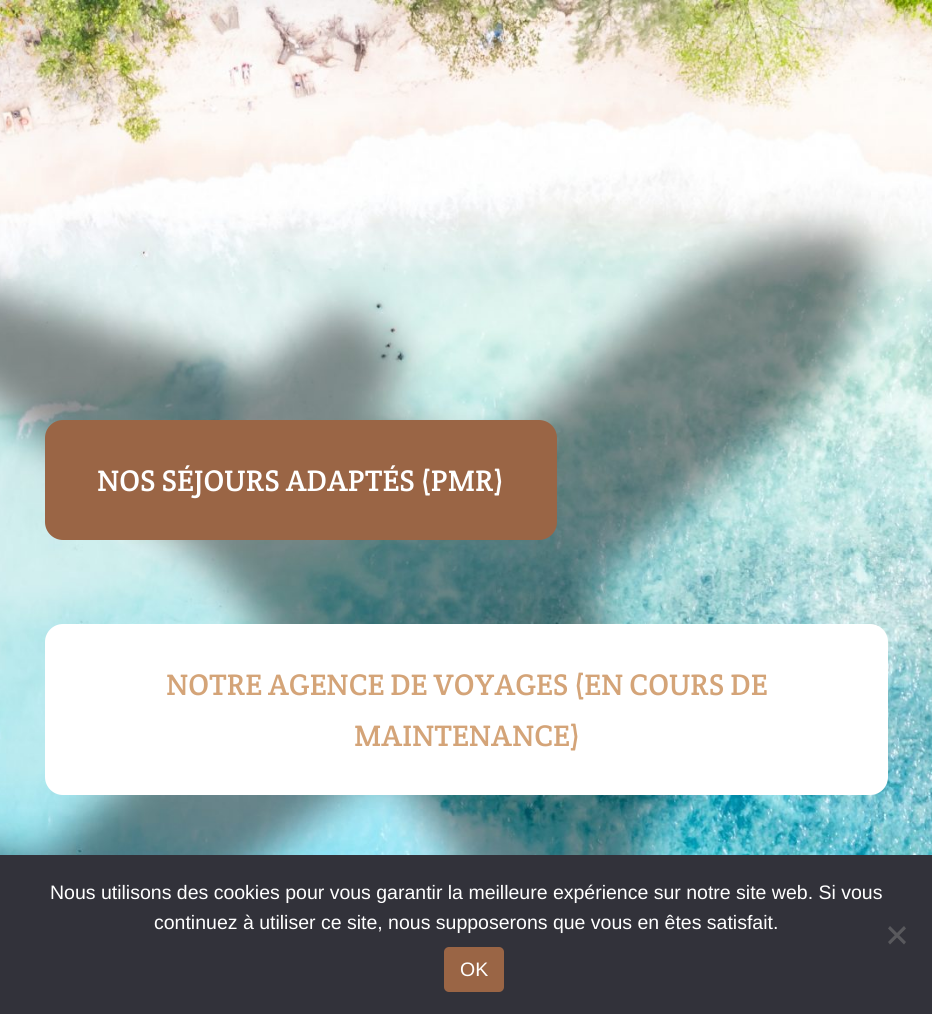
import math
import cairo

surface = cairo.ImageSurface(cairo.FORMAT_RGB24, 932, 1014)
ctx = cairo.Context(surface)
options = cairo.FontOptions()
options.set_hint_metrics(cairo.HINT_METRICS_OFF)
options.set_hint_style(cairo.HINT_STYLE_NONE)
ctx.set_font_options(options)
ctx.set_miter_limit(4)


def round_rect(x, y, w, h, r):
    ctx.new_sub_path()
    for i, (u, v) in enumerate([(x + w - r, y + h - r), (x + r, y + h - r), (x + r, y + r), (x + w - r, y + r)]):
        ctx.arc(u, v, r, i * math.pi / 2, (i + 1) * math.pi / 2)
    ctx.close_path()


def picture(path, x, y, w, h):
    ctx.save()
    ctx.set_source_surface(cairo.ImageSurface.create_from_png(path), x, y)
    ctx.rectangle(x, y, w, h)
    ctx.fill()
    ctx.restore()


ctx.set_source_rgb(1, 1, 1)
ctx.paint()
picture("img1.png", 0, 0, 932, 855)
ctx.set_source_rgb(0.604, 0.396, 0.271)
round_rect(45, 420, 512, 120, 18)
ctx.fill()
ctx.select_font_face("Crete Round")
ctx.set_font_size(30)
ctx.set_source_rgb(1, 1, 1)
ctx.move_to(97, 491)
ctx.show_text("NOS SÉJOURS ADAPTÉS (PMR)")
round_rect(45, 624, 843, 171, 18)
ctx.fill()
ctx.set_source_rgb(0.831, 0.643, 0.471)
ctx.move_to(166, 695)
ctx.show_text("NOTRE AGENCE DE VOYAGES (EN COURS DE")
ctx.move_to(354, 746)
ctx.show_text("MAINTENANCE)")
ctx.set_source_rgb(0.196, 0.196, 0.227)
ctx.rectangle(0, 855, 932, 159)
ctx.fill()
ctx.select_font_face("Liberation Sans")
ctx.set_font_size(19.5)
ctx.set_source_rgb(1, 1, 1)
ctx.move_to(50, 899)
ctx.show_text("Nous utilisons des cookies pour vous garantir la meilleure expérience sur notre site web. Si vous")
ctx.move_to(154, 929)
ctx.show_text("continuez à utiliser ce site, nous supposerons que vous en êtes satisfait.")
ctx.set_source_rgb(0.349, 0.349, 0.365)
ctx.new_path()
ctx.move_to(904, 926)
ctx.line_to(906, 928.5)
ctx.line_to(890, 944.5)
ctx.line_to(888, 942)
ctx.close_path()
ctx.fill()
ctx.new_path()
ctx.move_to(888, 928.5)
ctx.line_to(890, 926)
ctx.line_to(906, 942)
ctx.line_to(904, 944.5)
ctx.close_path()
ctx.fill()
ctx.set_source_rgb(0.604, 0.396, 0.271)
round_rect(444, 947, 60, 45, 5)
ctx.fill()
ctx.set_source_rgb(1, 1, 1)
ctx.move_to(460, 976)
ctx.show_text("OK")
surface.write_to_png("page.png")
